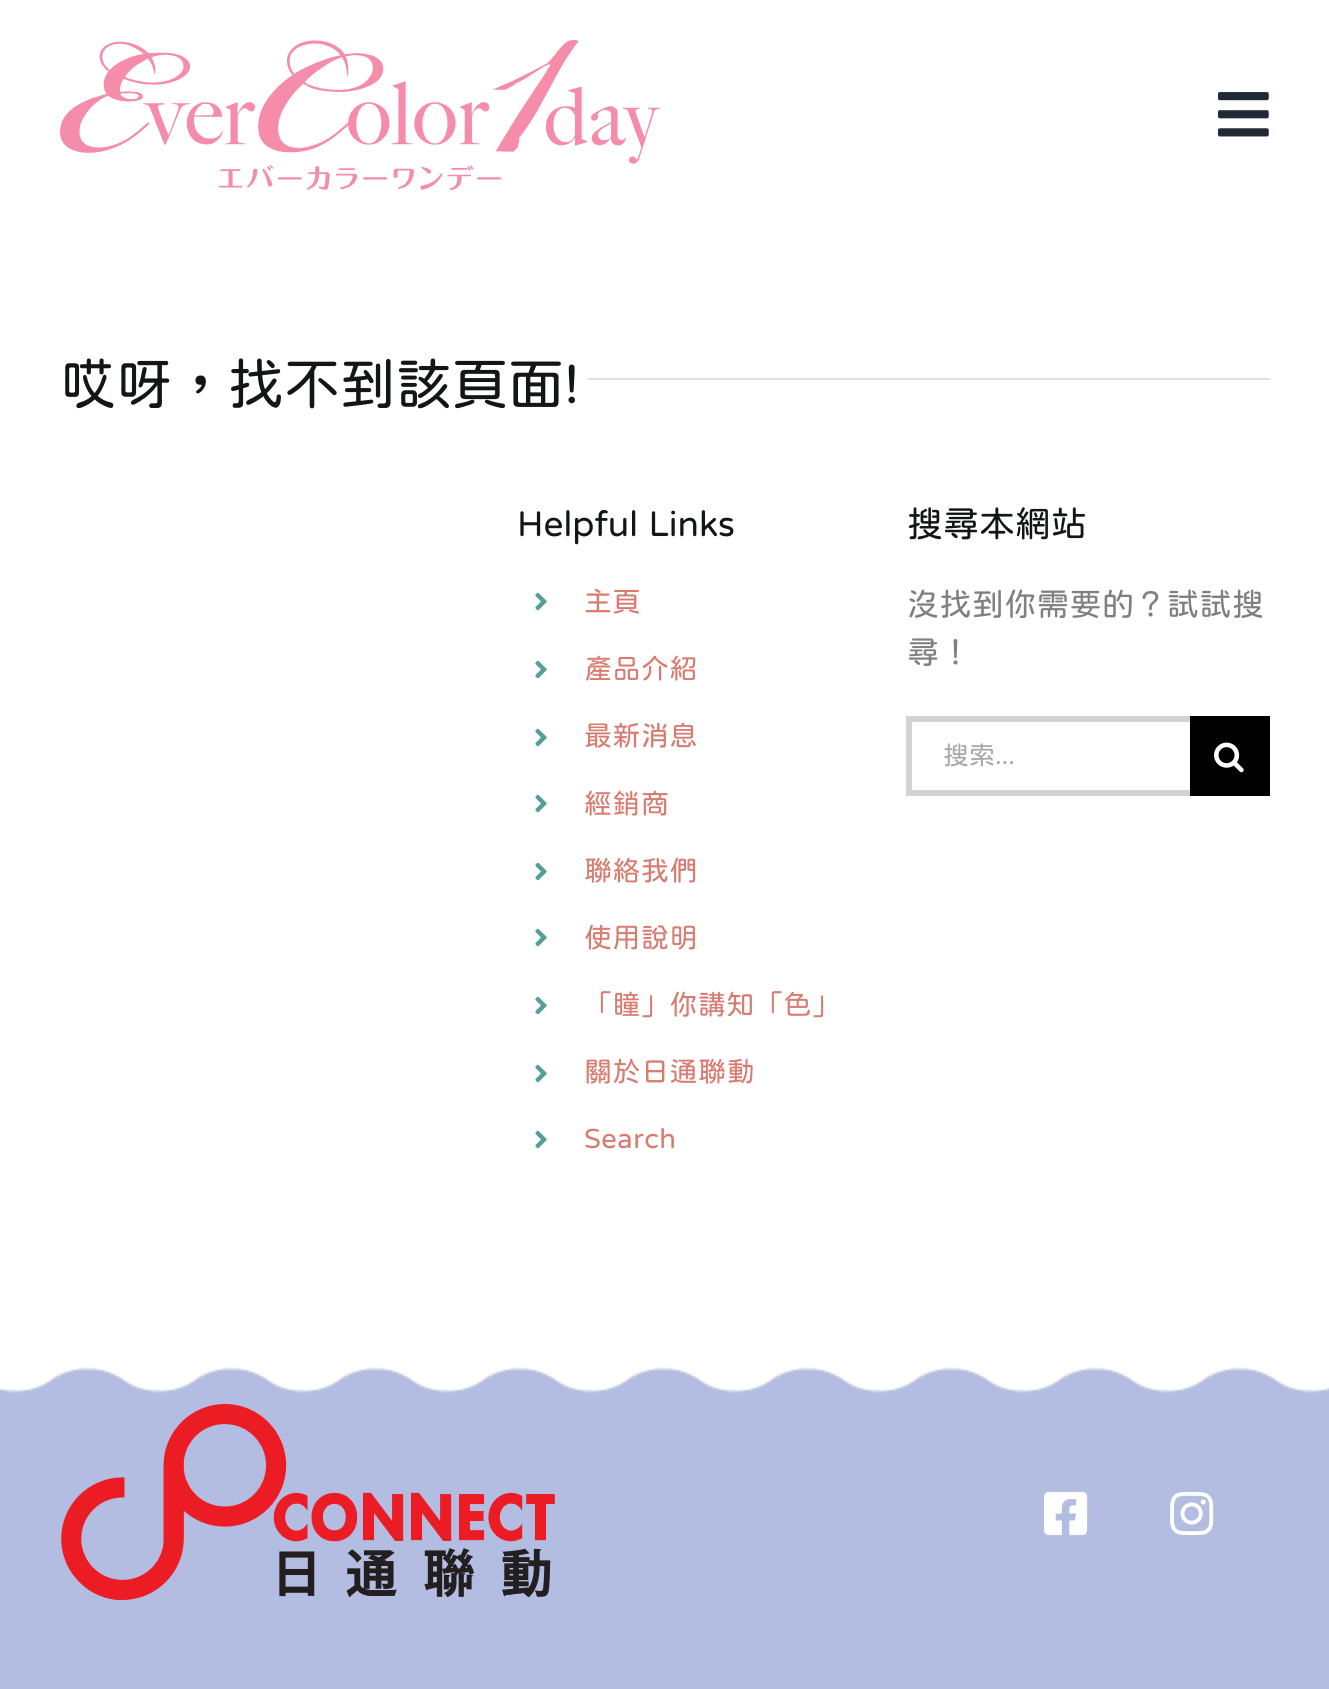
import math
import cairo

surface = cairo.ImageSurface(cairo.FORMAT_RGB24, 1329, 1689)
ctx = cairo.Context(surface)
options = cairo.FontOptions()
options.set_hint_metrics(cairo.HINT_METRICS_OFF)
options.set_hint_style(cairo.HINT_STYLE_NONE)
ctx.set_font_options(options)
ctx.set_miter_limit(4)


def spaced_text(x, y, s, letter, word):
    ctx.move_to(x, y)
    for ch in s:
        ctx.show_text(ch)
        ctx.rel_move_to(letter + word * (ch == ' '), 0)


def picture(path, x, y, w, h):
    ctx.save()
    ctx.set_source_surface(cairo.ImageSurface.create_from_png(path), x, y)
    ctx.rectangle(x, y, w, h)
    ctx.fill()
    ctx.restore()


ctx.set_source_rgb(1, 1, 1)
ctx.paint()
picture("img1.png", 60, 40, 600, 150)
picture("img2.png", 1218, 92, 51, 45)
ctx.select_font_face("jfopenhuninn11")
ctx.set_font_size(56)
ctx.set_source_rgb(0.078, 0.086, 0.09)
ctx.move_to(60, 403)
ctx.show_text("哎呀，找不到該頁面!")
ctx.set_source_rgb(0.878, 0.871, 0.871)
ctx.rectangle(588, 378, 682, 2)
ctx.fill()
ctx.set_font_size(36)
ctx.set_source_rgb(0.078, 0.086, 0.09)
ctx.move_to(517, 536)
ctx.show_text("Helpful Links")
picture("img3.png", 535, 592, 12, 19)
ctx.set_font_size(28)
ctx.set_source_rgb(0.847, 0.482, 0.439)
spaced_text(584, 611, "主頁", 0.5, 0)
picture("img3.png", 535, 660, 12, 19)
spaced_text(584, 678, "產品介紹", 0.5, 0)
picture("img3.png", 535, 728, 12, 19)
spaced_text(584, 745, "最新消息", 0.5, 0)
picture("img3.png", 535, 794, 12, 19)
spaced_text(584, 813, "經銷商", 0.5, 0)
picture("img3.png", 535, 862, 12, 19)
spaced_text(584, 880, "聯絡我們", 0.5, 0)
picture("img3.png", 535, 928, 12, 19)
spaced_text(584, 947, "使用說明", 0.5, 0)
picture("img3.png", 535, 996, 12, 19)
spaced_text(584, 1014, "「瞳」你講知「色」", 0.5, 0)
picture("img3.png", 535, 1064, 12, 19)
spaced_text(584, 1081, "關於日通聯動", 0.5, 0)
picture("img3.png", 535, 1130, 12, 19)
spaced_text(584, 1148, "Search", 0.5, 0)
ctx.set_font_size(36)
ctx.set_source_rgb(0.078, 0.086, 0.09)
ctx.move_to(907, 536)
ctx.show_text("搜尋本網站")
ctx.set_font_size(32)
ctx.set_source_rgb(0.502, 0.502, 0.502)
spaced_text(907, 615, "沒找到你需要的？試試搜", 0.5, 0)
spaced_text(907, 663, "尋！", 0.5, 0)
ctx.set_source_rgb(0.824, 0.824, 0.824)
ctx.rectangle(906, 716, 284, 6)
ctx.fill()
ctx.rectangle(906, 790, 284, 6)
ctx.fill()
ctx.rectangle(906, 716, 6, 80)
ctx.fill()
ctx.set_font_size(26)
ctx.set_source_rgb(0.667, 0.663, 0.663)
ctx.move_to(943, 764)
ctx.show_text("搜索...")
ctx.set_source_rgb(0, 0, 0)
ctx.rectangle(1190, 716, 80, 80)
ctx.fill()
picture("img4.png", 1214, 742, 30, 31)
picture("img5.png", 0, 1587, 1329, 102)
picture("img10.png", 85, 1587, 463, 13)
picture("img6.png", 0, 1367, 1329, 233)
picture("img7.png", 61, 1404, 494, 196)
picture("img8.png", 1044, 1491, 44, 45)
picture("img9.png", 1170, 1491, 44, 45)
surface.write_to_png("page.png")
